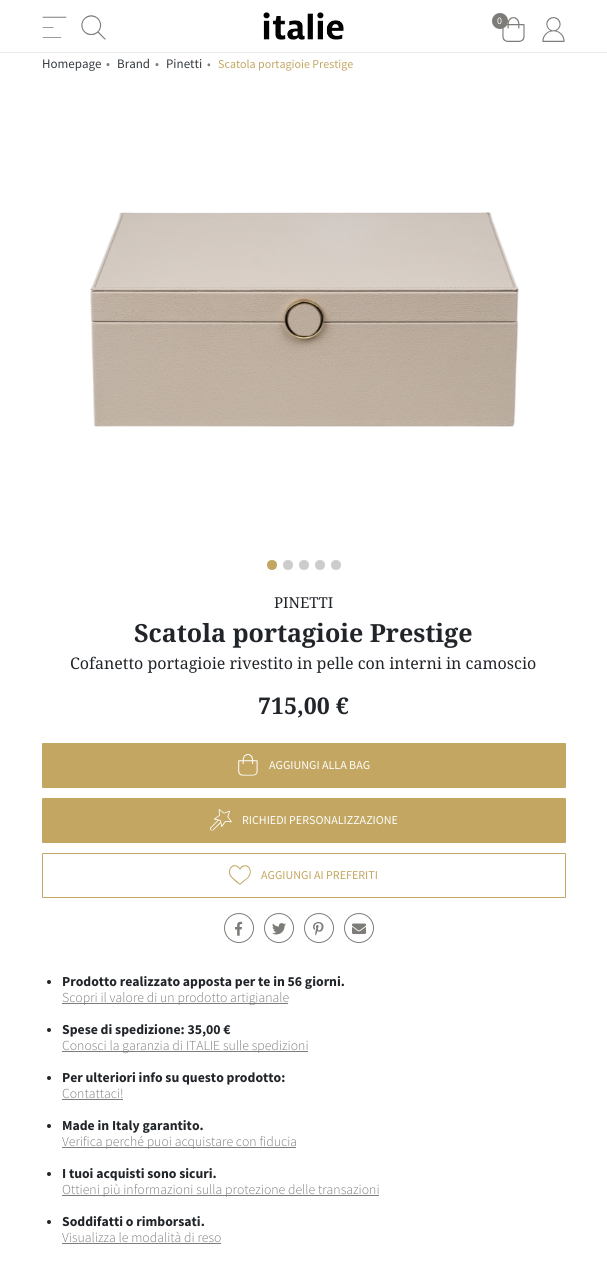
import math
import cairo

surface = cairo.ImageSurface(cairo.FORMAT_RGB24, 607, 1270)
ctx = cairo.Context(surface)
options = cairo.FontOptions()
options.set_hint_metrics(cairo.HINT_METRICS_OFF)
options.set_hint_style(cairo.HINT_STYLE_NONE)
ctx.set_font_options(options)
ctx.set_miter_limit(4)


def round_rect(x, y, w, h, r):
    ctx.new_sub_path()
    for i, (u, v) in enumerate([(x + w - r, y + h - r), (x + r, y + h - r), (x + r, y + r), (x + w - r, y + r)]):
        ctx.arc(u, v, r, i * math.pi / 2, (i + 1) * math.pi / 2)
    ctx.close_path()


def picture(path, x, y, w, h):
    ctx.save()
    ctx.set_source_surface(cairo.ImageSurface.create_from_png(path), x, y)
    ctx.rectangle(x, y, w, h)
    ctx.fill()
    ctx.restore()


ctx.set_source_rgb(1, 1, 1)
ctx.paint()
ctx.set_source_rgb(0.914, 0.925, 0.937)
ctx.rectangle(0, 52, 607, 1)
ctx.fill()
picture("img1.png", 42, 16, 25, 22)
picture("img2.png", 81, 15, 25, 25)
picture("img3.png", 263, 12, 81, 28)
picture("img4.png", 502, 17, 23, 25)
ctx.set_source_rgb(0.49, 0.486, 0.471)
ctx.arc(500, 21, 8, 0, 2 * math.pi)
ctx.fill()
ctx.select_font_face("Source Sans Pro")
ctx.set_font_size(10)
ctx.set_source_rgb(1, 1, 1)
ctx.move_to(497, 24)
ctx.show_text("0")
picture("img5.png", 542, 17, 23, 25)
ctx.set_font_size(13)
ctx.set_source_rgb(0.204, 0.227, 0.251)
ctx.move_to(42, 68)
ctx.show_text("Homepage")
ctx.set_source_rgb(0.49, 0.486, 0.471)
ctx.move_to(106, 68)
ctx.show_text("•")
ctx.set_source_rgb(0.204, 0.227, 0.251)
ctx.move_to(117, 68)
ctx.show_text("Brand")
ctx.set_source_rgb(0.49, 0.486, 0.471)
ctx.move_to(155, 68)
ctx.show_text("•")
ctx.set_source_rgb(0.204, 0.227, 0.251)
ctx.move_to(166, 68)
ctx.show_text("Pinetti")
ctx.set_font_size(12)
ctx.set_source_rgb(0.49, 0.486, 0.471)
ctx.move_to(207, 68)
ctx.show_text("•")
ctx.set_source_rgb(0.761, 0.651, 0.38)
ctx.move_to(218, 68)
ctx.show_text("Scatola portagioie Prestige")
picture("img6.png", 90, 212, 429, 215)
ctx.arc(272, 565, 5, 0, 2 * math.pi)
ctx.fill()
ctx.set_source_rgb(0.8, 0.8, 0.8)
ctx.arc(288, 565, 5, 0, 2 * math.pi)
ctx.fill()
ctx.arc(304, 565, 5, 0, 2 * math.pi)
ctx.fill()
ctx.arc(320, 565, 5, 0, 2 * math.pi)
ctx.fill()
ctx.arc(336, 565, 5, 0, 2 * math.pi)
ctx.fill()
ctx.select_font_face("Noto Serif")
ctx.set_font_size(15)
ctx.set_source_rgb(0.129, 0.145, 0.161)
ctx.move_to(274, 608)
ctx.show_text("PINETTI")
ctx.select_font_face("Noto Serif", cairo.FONT_SLANT_NORMAL, cairo.FONT_WEIGHT_BOLD)
ctx.set_font_size(25)
ctx.move_to(134, 642)
ctx.show_text("Scatola portagioie Prestige")
ctx.select_font_face("Noto Serif")
ctx.set_font_size(16)
ctx.move_to(70, 669)
ctx.show_text("Cofanetto portagioie rivestito in pelle con interni in camoscio")
ctx.select_font_face("Noto Serif", cairo.FONT_SLANT_NORMAL, cairo.FONT_WEIGHT_BOLD)
ctx.set_font_size(23)
ctx.move_to(258, 714)
ctx.show_text("715,00 €")
ctx.set_source_rgb(0.761, 0.651, 0.38)
round_rect(42.5, 743.5, 523, 44, 0.5)
ctx.fill_preserve()
ctx.set_line_width(1)
ctx.stroke()
picture("img7.png", 238, 754, 20, 22)
ctx.select_font_face("Source Sans Pro")
ctx.set_font_size(12)
ctx.set_source_rgb(1, 1, 1)
ctx.move_to(269, 769)
ctx.show_text("AGGIUNGI ALLA BAG")
ctx.set_source_rgb(0.761, 0.651, 0.38)
round_rect(42.5, 798.5, 523, 44, 0.5)
ctx.fill_preserve()
ctx.stroke()
picture("img8.png", 210, 809, 22, 22)
ctx.set_source_rgb(1, 1, 1)
ctx.move_to(242, 824)
ctx.show_text("RICHIEDI PERSONALIZZAZIONE")
round_rect(42.5, 853.5, 523, 44, 0.5)
ctx.set_source_rgb(0.761, 0.651, 0.38)
ctx.stroke()
picture("img9.png", 229, 865, 22, 20)
ctx.move_to(261, 879)
ctx.show_text("AGGIUNGI AI PREFERITI")
ctx.new_path()
ctx.arc(239, 928, 14.5, 0, 2 * math.pi)
ctx.set_source_rgb(0.49, 0.486, 0.471)
ctx.stroke()
picture("img10.png", 235, 921, 8, 15)
ctx.arc(279, 928, 14.5, 0, 2 * math.pi)
ctx.stroke()
picture("img11.png", 272, 923, 14, 12)
ctx.arc(319, 928, 14.5, 0, 2 * math.pi)
ctx.stroke()
picture("img12.png", 313, 921, 11, 15)
ctx.arc(359, 928, 14.5, 0, 2 * math.pi)
ctx.stroke()
picture("img13.png", 352, 923, 14, 11)
ctx.set_source_rgb(0.129, 0.145, 0.161)
ctx.arc(49, 982, 2, 0, 2 * math.pi)
ctx.fill()
ctx.select_font_face("Source Sans Pro", cairo.FONT_SLANT_NORMAL, cairo.FONT_WEIGHT_BOLD)
ctx.set_font_size(13.75)
ctx.move_to(62, 986)
ctx.show_text("Prodotto realizzato apposta per te in 56 giorni.")
ctx.set_source_rgb(0.49, 0.486, 0.471)
ctx.rectangle(62, 1003, 226, 1)
ctx.fill()
ctx.select_font_face("Source Sans Pro Light")
ctx.move_to(62, 1002)
ctx.show_text("Scopri il valore di un prodotto artigianale")
ctx.set_source_rgb(0.129, 0.145, 0.161)
ctx.new_path()
ctx.arc(49, 1030, 2, 0, 2 * math.pi)
ctx.fill()
ctx.select_font_face("Source Sans Pro", cairo.FONT_SLANT_NORMAL, cairo.FONT_WEIGHT_BOLD)
ctx.move_to(62, 1034)
ctx.show_text("Spese di spedizione: 35,00 €")
ctx.set_source_rgb(0.49, 0.486, 0.471)
ctx.rectangle(62, 1051, 246, 1)
ctx.fill()
ctx.select_font_face("Source Sans Pro Light")
ctx.move_to(62, 1050)
ctx.show_text("Conosci la garanzia di ITALIE sulle spedizioni")
ctx.set_source_rgb(0.129, 0.145, 0.161)
ctx.new_path()
ctx.arc(49, 1078, 2, 0, 2 * math.pi)
ctx.fill()
ctx.select_font_face("Source Sans Pro", cairo.FONT_SLANT_NORMAL, cairo.FONT_WEIGHT_BOLD)
ctx.move_to(62, 1082)
ctx.show_text("Per ulteriori info su questo prodotto:")
ctx.select_font_face("Source Sans Pro Light")
ctx.set_source_rgb(0.49, 0.486, 0.471)
ctx.move_to(62, 1098)
ctx.show_text("Contattaci!")
ctx.rectangle(62, 1099, 61, 1)
ctx.fill()
ctx.set_source_rgb(0.129, 0.145, 0.161)
ctx.arc(49, 1126, 2, 0, 2 * math.pi)
ctx.fill()
ctx.select_font_face("Source Sans Pro", cairo.FONT_SLANT_NORMAL, cairo.FONT_WEIGHT_BOLD)
ctx.move_to(62, 1130)
ctx.show_text("Made in Italy garantito.")
ctx.set_source_rgb(0.49, 0.486, 0.471)
ctx.rectangle(62, 1147, 234, 1)
ctx.fill()
ctx.select_font_face("Source Sans Pro Light")
ctx.move_to(62, 1146)
ctx.show_text("Verifica perché puoi acquistare con fiducia")
ctx.set_source_rgb(0.129, 0.145, 0.161)
ctx.new_path()
ctx.arc(49, 1174, 2, 0, 2 * math.pi)
ctx.fill()
ctx.select_font_face("Source Sans Pro", cairo.FONT_SLANT_NORMAL, cairo.FONT_WEIGHT_BOLD)
ctx.move_to(62, 1178)
ctx.show_text("I tuoi acquisti sono sicuri.")
ctx.set_source_rgb(0.49, 0.486, 0.471)
ctx.rectangle(62, 1195, 317, 1)
ctx.fill()
ctx.select_font_face("Source Sans Pro Light")
ctx.move_to(62, 1194)
ctx.show_text("Ottieni più informazioni sulla protezione delle transazioni")
ctx.set_source_rgb(0.129, 0.145, 0.161)
ctx.new_path()
ctx.arc(49, 1222, 2, 0, 2 * math.pi)
ctx.fill()
ctx.select_font_face("Source Sans Pro", cairo.FONT_SLANT_NORMAL, cairo.FONT_WEIGHT_BOLD)
ctx.move_to(62, 1226)
ctx.show_text("Soddifatti o rimborsati.")
ctx.select_font_face("Source Sans Pro Light")
ctx.set_source_rgb(0.49, 0.486, 0.471)
ctx.move_to(62, 1242)
ctx.show_text("Visualizza le modalità di reso")
ctx.rectangle(62, 1243, 159, 1)
ctx.fill()
surface.write_to_png("page.png")
